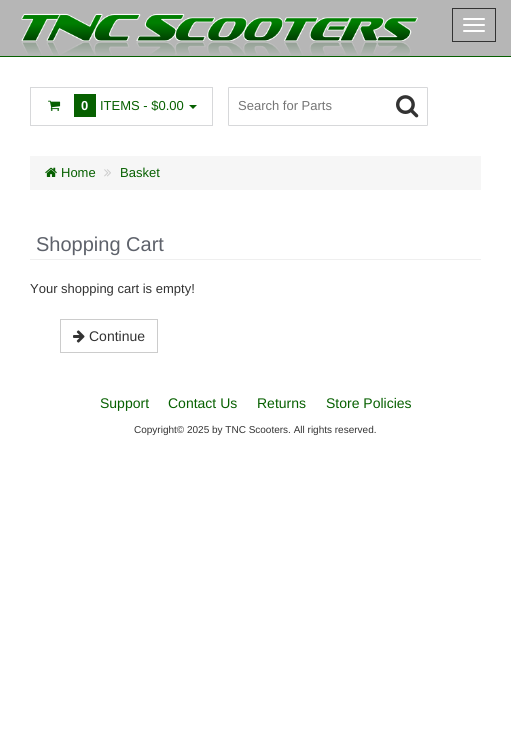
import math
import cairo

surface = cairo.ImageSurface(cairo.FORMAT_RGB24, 511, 731)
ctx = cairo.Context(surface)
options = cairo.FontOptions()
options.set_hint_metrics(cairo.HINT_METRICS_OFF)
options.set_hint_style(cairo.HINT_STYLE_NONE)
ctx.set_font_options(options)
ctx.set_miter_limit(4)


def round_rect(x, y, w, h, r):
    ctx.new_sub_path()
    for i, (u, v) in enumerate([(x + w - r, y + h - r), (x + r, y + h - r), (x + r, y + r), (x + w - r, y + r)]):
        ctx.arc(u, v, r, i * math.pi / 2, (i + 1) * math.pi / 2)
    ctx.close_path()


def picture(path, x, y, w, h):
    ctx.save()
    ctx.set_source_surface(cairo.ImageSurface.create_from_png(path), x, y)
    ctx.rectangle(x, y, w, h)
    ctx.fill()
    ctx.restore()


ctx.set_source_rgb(1, 1, 1)
ctx.paint()
ctx.set_source_rgb(0.714, 0.714, 0.714)
ctx.rectangle(0, 0, 511, 56)
ctx.fill()
ctx.set_source_rgb(0.024, 0.376, 0)
ctx.rectangle(0, 56, 511, 1)
ctx.fill()
picture("img1.png", 21, 13, 397, 42)
ctx.rectangle(452.5, 8.5, 43, 33)
ctx.set_source_rgb(0.2, 0.2, 0.2)
ctx.set_line_width(1)
ctx.stroke()
ctx.set_source_rgb(1, 1, 1)
round_rect(463, 18, 22, 2, 1)
ctx.fill()
round_rect(463, 24, 22, 2, 1)
ctx.fill()
round_rect(463, 30, 22, 2, 1)
ctx.fill()
ctx.rectangle(30.5, 87.5, 182, 38)
ctx.set_source_rgb(0.843, 0.847, 0.855)
ctx.stroke()
picture("img2.png", 48, 100, 13, 11)
ctx.set_source_rgb(0.024, 0.376, 0)
ctx.rectangle(74, 94, 22, 23)
ctx.fill()
ctx.select_font_face("Liberation Sans", cairo.FONT_SLANT_NORMAL, cairo.FONT_WEIGHT_BOLD)
ctx.set_font_size(13)
ctx.set_source_rgb(1, 1, 1)
ctx.move_to(81, 110)
ctx.show_text("0")
ctx.select_font_face("Liberation Sans")
ctx.set_source_rgb(0.024, 0.376, 0)
ctx.move_to(100, 110)
ctx.show_text("ITEMS - $0.00")
ctx.new_path()
ctx.move_to(189, 105)
ctx.line_to(197, 105)
ctx.line_to(193, 109)
ctx.close_path()
ctx.fill()
round_rect(228.5, 87.5, 199, 38, 0.5)
ctx.set_source_rgb(0.843, 0.847, 0.855)
ctx.stroke()
ctx.set_source_rgb(0.459, 0.459, 0.459)
ctx.move_to(238, 110)
ctx.show_text("Search for Parts")
picture("img3.png", 396, 95, 23, 23)
ctx.set_source_rgb(0.961, 0.961, 0.961)
ctx.rectangle(30, 156, 451, 34)
ctx.fill()
picture("img4.png", 45, 167, 12, 10)
ctx.set_source_rgb(0.024, 0.376, 0)
ctx.move_to(61, 177)
ctx.show_text("Home")
picture("img5.png", 104, 169, 7, 8)
ctx.move_to(120, 177)
ctx.show_text("Basket")
ctx.set_source_rgb(0.937, 0.937, 0.937)
ctx.rectangle(30, 259, 451, 1)
ctx.fill()
ctx.set_font_size(20)
ctx.set_source_rgb(0.369, 0.384, 0.42)
ctx.move_to(36, 251)
ctx.show_text("Shopping Cart")
ctx.set_font_size(13)
ctx.set_source_rgb(0.2, 0.2, 0.2)
ctx.move_to(30, 293)
ctx.show_text("Your shopping cart is empty!")
ctx.rectangle(60.5, 319.5, 97, 33)
ctx.set_source_rgb(0.8, 0.8, 0.8)
ctx.stroke()
picture("img6.png", 73, 330, 12, 13)
ctx.set_font_size(14)
ctx.set_source_rgb(0.2, 0.2, 0.2)
ctx.move_to(89, 341)
ctx.show_text("Continue")
ctx.set_source_rgb(0.024, 0.376, 0)
ctx.move_to(100, 408)
ctx.show_text("Support")
ctx.move_to(168, 408)
ctx.show_text("Contact Us")
ctx.move_to(257, 408)
ctx.show_text("Returns")
ctx.move_to(326, 408)
ctx.show_text("Store Policies")
ctx.set_font_size(10)
ctx.set_source_rgb(0.2, 0.2, 0.2)
ctx.move_to(134, 433)
ctx.show_text("Copyright© 2025 by TNC Scooters. All rights reserved.")
surface.write_to_png("page.png")
